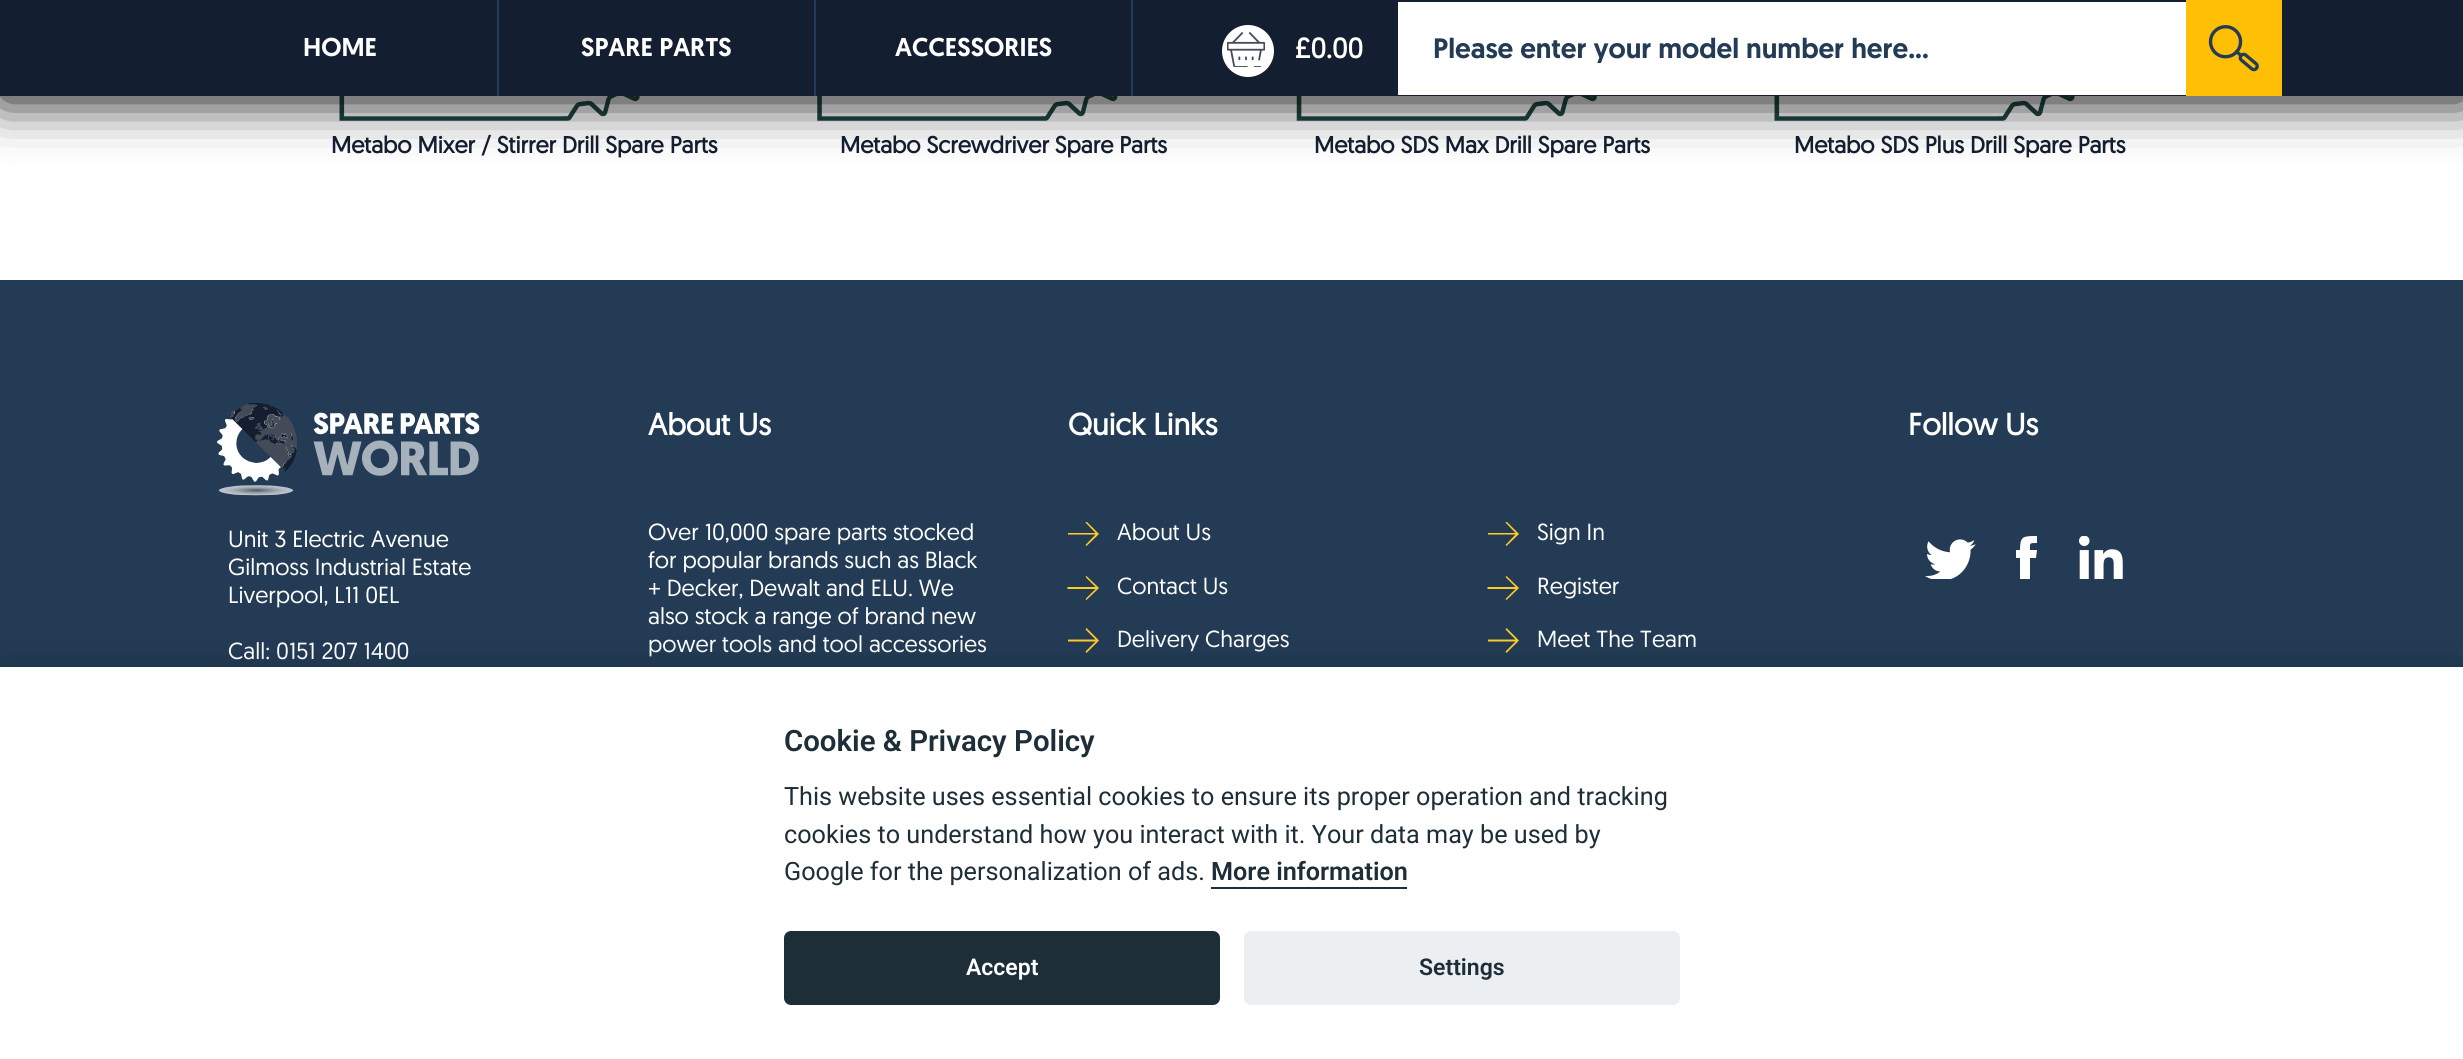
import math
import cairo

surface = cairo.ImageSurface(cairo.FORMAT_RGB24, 2463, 1059)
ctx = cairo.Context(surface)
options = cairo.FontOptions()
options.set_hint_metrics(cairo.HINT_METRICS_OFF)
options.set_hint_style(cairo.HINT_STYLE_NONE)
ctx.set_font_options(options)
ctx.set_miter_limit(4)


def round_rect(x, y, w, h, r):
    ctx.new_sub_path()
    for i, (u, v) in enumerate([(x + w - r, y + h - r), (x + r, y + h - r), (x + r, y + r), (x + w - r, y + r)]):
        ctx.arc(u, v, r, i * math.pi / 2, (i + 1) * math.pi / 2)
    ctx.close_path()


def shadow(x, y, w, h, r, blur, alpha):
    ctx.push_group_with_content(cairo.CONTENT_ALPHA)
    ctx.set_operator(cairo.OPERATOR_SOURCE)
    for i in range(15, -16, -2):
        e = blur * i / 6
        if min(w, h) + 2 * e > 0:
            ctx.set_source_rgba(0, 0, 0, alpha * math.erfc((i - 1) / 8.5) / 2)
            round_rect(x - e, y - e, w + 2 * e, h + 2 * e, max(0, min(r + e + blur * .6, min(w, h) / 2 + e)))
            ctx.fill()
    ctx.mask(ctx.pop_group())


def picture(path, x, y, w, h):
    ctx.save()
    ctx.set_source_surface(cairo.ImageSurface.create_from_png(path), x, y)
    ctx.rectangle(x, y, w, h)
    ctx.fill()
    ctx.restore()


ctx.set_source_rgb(1, 1, 1)
ctx.paint()
picture("img3.png", 339, 96, 301, 25)
picture("img4.png", 817, 96, 301, 25)
picture("img5.png", 1296, 96, 301, 25)
picture("img3.png", 1774, 96, 301, 25)
ctx.set_source_rgb(0, 0, 0)
shadow(0, 0, 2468, 100, 0, 26, 1)
ctx.set_source_rgb(0.078, 0.118, 0.188)
ctx.rectangle(0, 0, 2463, 96)
ctx.fill()
ctx.set_source_rgb(0.137, 0.231, 0.333)
ctx.rectangle(497, 0, 2, 96)
ctx.fill()
ctx.select_font_face("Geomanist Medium")
ctx.set_font_size(25.75)
ctx.set_source_rgb(1, 1, 1)
ctx.move_to(303, 56)
ctx.show_text("HOME")
ctx.set_source_rgb(0.137, 0.231, 0.333)
ctx.rectangle(814, 0, 2, 96)
ctx.fill()
ctx.set_source_rgb(1, 1, 1)
ctx.move_to(581, 56)
ctx.show_text("SPARE PARTS")
ctx.set_source_rgb(0.137, 0.231, 0.333)
ctx.rectangle(1131, 0, 2, 96)
ctx.fill()
ctx.set_source_rgb(1, 1, 1)
ctx.move_to(895, 56)
ctx.show_text("ACCESSORIES")
ctx.new_path()
ctx.arc(1248, 51, 26, 0, 2 * math.pi)
ctx.fill()
picture("img1.png", 1227, 32, 38, 35)
ctx.select_font_face("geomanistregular", cairo.FONT_SLANT_NORMAL, cairo.FONT_WEIGHT_BOLD)
ctx.set_font_size(28)
ctx.move_to(1295, 58)
ctx.show_text("£0.00")
ctx.rectangle(1398, 2, 788, 93)
ctx.fill()
ctx.select_font_face("Geomanist Medium")
ctx.set_source_rgb(0.137, 0.231, 0.333)
ctx.move_to(1433, 58)
ctx.show_text("Please enter your model number here...")
ctx.set_source_rgb(1, 0.749, 0.02)
ctx.rectangle(2186, 0, 96, 96)
ctx.fill()
picture("img2.png", 2208, 25, 51, 47)
ctx.select_font_face("geomanistregular", cairo.FONT_SLANT_NORMAL, cairo.FONT_WEIGHT_BOLD)
ctx.set_font_size(23.3)
ctx.set_source_rgb(0.078, 0.118, 0.188)
ctx.move_to(331, 153)
ctx.show_text("Metabo Mixer / Stirrer Drill Spare Parts")
ctx.move_to(840, 153)
ctx.show_text("Metabo Screwdriver Spare Parts")
ctx.move_to(1314, 153)
ctx.show_text("Metabo SDS Max Drill Spare Parts")
ctx.move_to(1794, 153)
ctx.show_text("Metabo SDS Plus Drill Spare Parts")
ctx.set_source_rgb(0.137, 0.231, 0.333)
ctx.rectangle(0, 280, 2463, 387)
ctx.fill()
ctx.set_font_size(30.5)
ctx.set_source_rgb(1, 1, 1)
ctx.move_to(648, 435)
ctx.show_text("About Us")
ctx.select_font_face("geomanistregular")
ctx.set_font_size(23.3)
ctx.move_to(648, 540)
ctx.show_text("Over 10,000 spare parts stocked")
ctx.move_to(648, 568)
ctx.show_text("for popular brands such as Black")
ctx.move_to(648, 596)
ctx.show_text("+ Decker, Dewalt and ELU. We")
ctx.move_to(648, 624)
ctx.show_text("also stock a range of brand new")
ctx.move_to(648, 652)
ctx.show_text("power tools and tool accessories")
ctx.select_font_face("geomanistregular", cairo.FONT_SLANT_NORMAL, cairo.FONT_WEIGHT_BOLD)
ctx.set_font_size(30.5)
ctx.move_to(1068, 435)
ctx.show_text("Quick Links")
ctx.save()
ctx.rectangle(1068, 522, 31, 24)
ctx.clip()
ctx.set_source_rgb(1, 0.796, 0.145)
ctx.new_path()
ctx.move_to(1099, 534)
ctx.line_to(1086.5, 546)
ctx.line_to(1085.5, 545)
ctx.line_to(1095.5, 534.5)
ctx.line_to(1067.5, 534.5)
ctx.line_to(1067.5, 533)
ctx.line_to(1095.5, 533)
ctx.line_to(1085.5, 522.5)
ctx.line_to(1086.5, 521.5)
ctx.close_path()
ctx.fill()
ctx.restore()
ctx.select_font_face("geomanistregular")
ctx.set_font_size(23.3)
ctx.move_to(1117, 540)
ctx.show_text("About Us")
ctx.set_source_rgb(1, 0.796, 0.145)
ctx.new_path()
ctx.move_to(1099, 588)
ctx.line_to(1086.5, 600)
ctx.line_to(1085.5, 599)
ctx.line_to(1095.5, 589)
ctx.line_to(1067.5, 589)
ctx.line_to(1067.5, 587)
ctx.line_to(1095.5, 587)
ctx.line_to(1085.5, 577)
ctx.line_to(1086.5, 576)
ctx.close_path()
ctx.fill()
ctx.set_source_rgb(1, 1, 1)
ctx.move_to(1117, 594)
ctx.show_text("Contact Us")
ctx.save()
ctx.rectangle(1068, 628, 31, 25)
ctx.clip()
ctx.set_source_rgb(1, 0.796, 0.145)
ctx.new_path()
ctx.move_to(1099, 640.5)
ctx.line_to(1086.5, 653)
ctx.line_to(1085.5, 651.5)
ctx.line_to(1095.5, 641.5)
ctx.line_to(1067.5, 641.5)
ctx.line_to(1067.5, 639.5)
ctx.line_to(1095.5, 639.5)
ctx.line_to(1085.5, 629.5)
ctx.line_to(1086.5, 628)
ctx.close_path()
ctx.fill()
ctx.restore()
ctx.move_to(1117, 647)
ctx.show_text("Delivery Charges")
ctx.select_font_face("geomanistregular", cairo.FONT_SLANT_NORMAL, cairo.FONT_WEIGHT_BOLD)
ctx.set_font_size(30.5)
ctx.move_to(1908, 435)
ctx.show_text("Follow Us")
picture("img6.png", 1925, 539, 51, 40)
ctx.save()
ctx.rectangle(2016, 536, 21, 43)
ctx.clip()
ctx.new_path()
ctx.move_to(2037, 550)
ctx.line_to(2030, 550)
ctx.curve_to(2030, 543, 2029, 543, 2037, 543)
ctx.line_to(2037, 536)
ctx.curve_to(2023, 536, 2020, 536, 2020, 550)
ctx.line_to(2016, 550)
ctx.line_to(2016, 558)
ctx.line_to(2020, 558)
ctx.line_to(2020, 581)
ctx.line_to(2030, 581)
ctx.line_to(2030, 558)
ctx.line_to(2036, 558)
ctx.close_path()
ctx.fill()
ctx.restore()
picture("img7.png", 2079, 536, 44, 43)
picture("img8.png", 217, 403, 263, 93)
ctx.select_font_face("geomanistregular")
ctx.set_font_size(23.3)
ctx.move_to(228, 547)
ctx.show_text("Unit 3 Electric Avenue")
ctx.move_to(228, 575)
ctx.show_text("Gilmoss Industrial Estate")
ctx.move_to(228, 603)
ctx.show_text("Liverpool, L11 0EL")
ctx.move_to(228, 659)
ctx.show_text("Call: 0151 207 1400")
ctx.save()
ctx.rectangle(1488, 522, 31, 24)
ctx.clip()
ctx.set_source_rgb(1, 0.796, 0.145)
ctx.new_path()
ctx.move_to(1519, 534)
ctx.line_to(1506.5, 546)
ctx.line_to(1505.5, 545)
ctx.line_to(1515.5, 534.5)
ctx.line_to(1487.5, 534.5)
ctx.line_to(1487.5, 533)
ctx.line_to(1515.5, 533)
ctx.line_to(1505.5, 522.5)
ctx.line_to(1506.5, 521.5)
ctx.close_path()
ctx.fill()
ctx.restore()
ctx.move_to(1537, 540)
ctx.show_text("Sign In")
ctx.set_source_rgb(1, 0.796, 0.145)
ctx.new_path()
ctx.move_to(1519, 588)
ctx.line_to(1506.5, 600)
ctx.line_to(1505.5, 599)
ctx.line_to(1515.5, 589)
ctx.line_to(1487.5, 589)
ctx.line_to(1487.5, 587)
ctx.line_to(1515.5, 587)
ctx.line_to(1505.5, 577)
ctx.line_to(1506.5, 576)
ctx.close_path()
ctx.fill()
ctx.set_source_rgb(1, 1, 1)
ctx.move_to(1537, 594)
ctx.show_text("Register")
ctx.save()
ctx.rectangle(1488, 628, 31, 25)
ctx.clip()
ctx.set_source_rgb(1, 0.796, 0.145)
ctx.new_path()
ctx.move_to(1519, 640.5)
ctx.line_to(1506.5, 653)
ctx.line_to(1505.5, 651.5)
ctx.line_to(1515.5, 641.5)
ctx.line_to(1487.5, 641.5)
ctx.line_to(1487.5, 639.5)
ctx.line_to(1515.5, 639.5)
ctx.line_to(1505.5, 629.5)
ctx.line_to(1506.5, 628)
ctx.close_path()
ctx.fill()
ctx.restore()
ctx.move_to(1537, 647)
ctx.show_text("Meet The Team")
ctx.set_source_rgb(0.008, 0.008, 0.012)
shadow(0, 684, 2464, 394, 0, 26, 0.28)
ctx.set_source_rgb(1, 1, 1)
ctx.rectangle(0, 667, 2463, 392)
ctx.fill()
ctx.select_font_face("Roboto SemiBold")
ctx.set_font_size(29.4)
ctx.set_source_rgb(0.114, 0.18, 0.22)
ctx.move_to(784, 751)
ctx.show_text("Cookie & Privacy Policy")
ctx.select_font_face("Roboto")
ctx.set_font_size(25.2)
ctx.move_to(784, 805)
ctx.show_text("This website uses essential cookies to ensure its proper operation and tracking")
ctx.move_to(784, 843)
ctx.show_text("cookies to understand how you interact with it. Your data may be used by")
ctx.move_to(784, 880)
ctx.show_text("Google for the personalization of ads.")
ctx.select_font_face("Roboto SemiBold")
ctx.move_to(1211, 880)
ctx.show_text("More information")
ctx.rectangle(1211, 887, 196, 2)
ctx.fill()
round_rect(784, 931, 436, 74, 7)
ctx.fill()
ctx.set_font_size(23)
ctx.set_source_rgb(1, 1, 1)
ctx.move_to(966, 975)
ctx.show_text("Accept")
ctx.set_source_rgb(0.918, 0.937, 0.949)
round_rect(1244, 931, 436, 74, 7)
ctx.fill()
ctx.set_source_rgb(0.114, 0.18, 0.22)
ctx.move_to(1419, 975)
ctx.show_text("Settings")
surface.write_to_png("page.png")
